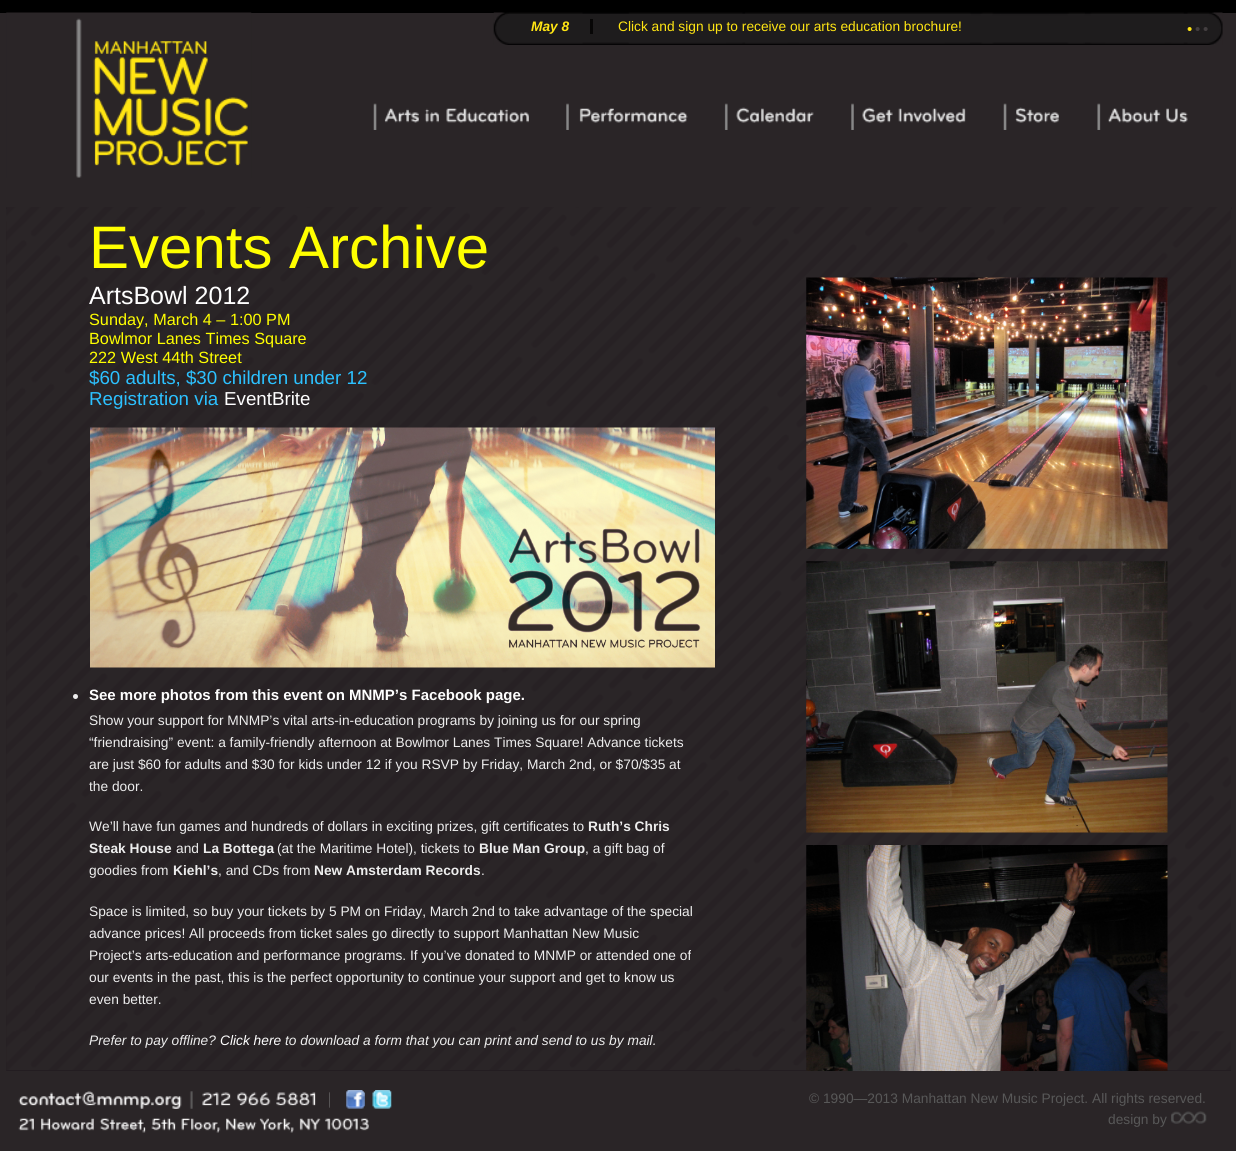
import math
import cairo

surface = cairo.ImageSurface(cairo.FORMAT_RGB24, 1236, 1151)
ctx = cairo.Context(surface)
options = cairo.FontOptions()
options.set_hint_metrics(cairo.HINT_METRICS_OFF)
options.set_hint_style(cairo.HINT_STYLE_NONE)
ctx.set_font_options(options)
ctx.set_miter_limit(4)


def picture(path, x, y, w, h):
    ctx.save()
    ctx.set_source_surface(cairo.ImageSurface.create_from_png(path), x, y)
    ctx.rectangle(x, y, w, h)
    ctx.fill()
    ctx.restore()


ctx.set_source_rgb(0.165, 0.145, 0.153)
ctx.paint()
ctx.set_source_rgb(0, 0, 0)
ctx.rectangle(0, 0, 1236, 13)
ctx.fill()
picture("img1.png", 6, 207, 1226, 864)
ctx.set_source_rgb(0.137, 0.114, 0.129)
ctx.rectangle(257, 1070, 974, 1)
ctx.fill()
picture("img2.png", 6, 12, 246, 166)
picture("img3.png", 493, 12, 730, 33)
ctx.set_source_rgb(0.031, 0.027, 0.027)
ctx.rectangle(590, 19, 3, 15)
ctx.fill()
ctx.select_font_face("Liberation Sans", cairo.FONT_SLANT_ITALIC, cairo.FONT_WEIGHT_BOLD)
ctx.set_font_size(13.75)
ctx.set_source_rgb(1, 0.898, 0.075)
ctx.move_to(531, 31)
ctx.show_text("May 8")
ctx.select_font_face("Liberation Sans")
ctx.move_to(618, 31)
ctx.show_text("Click and sign up to receive our arts education brochure!")
ctx.set_font_size(15)
ctx.move_to(1187, 34)
ctx.show_text("•")
ctx.set_source_rgb(0.263, 0.243, 0.251)
ctx.move_to(1195, 34)
ctx.show_text("•")
ctx.move_to(1203, 34)
ctx.show_text("•")
picture("img4.png", 373, 103, 156, 27)
picture("img5.png", 566, 103, 122, 27)
picture("img6.png", 724, 103, 90, 27)
picture("img7.png", 851, 103, 115, 27)
picture("img8.png", 1003, 103, 56, 27)
picture("img9.png", 1097, 103, 91, 27)
picture("img10.png", 6, 207, 1225, 863)
ctx.set_font_size(60)
ctx.set_source_rgb(1, 1, 0)
ctx.move_to(89, 268)
ctx.show_text("Events Archive")
ctx.set_font_size(25)
ctx.set_source_rgb(1, 1, 1)
ctx.move_to(89, 304)
ctx.show_text("ArtsBowl 2012")
ctx.set_font_size(16.25)
ctx.set_source_rgb(1, 1, 0)
ctx.move_to(89, 325)
ctx.show_text("Sunday, March 4 – 1:00 PM")
ctx.move_to(89, 344)
ctx.show_text("Bowlmor Lanes Times Square")
ctx.move_to(89, 363)
ctx.show_text("222 West 44th Street")
ctx.set_font_size(18.75)
ctx.set_source_rgb(0.173, 0.757, 1)
ctx.move_to(89, 384)
ctx.show_text("$60 adults, $30 children under 12")
ctx.move_to(89, 405)
ctx.show_text("Registration via")
ctx.set_source_rgb(1, 1, 1)
ctx.move_to(224, 405)
ctx.show_text("EventBrite")
picture("img11.png", 90, 427, 625, 241)
ctx.set_source_rgb(0.929, 0.929, 0.929)
ctx.arc(75.5, 696.5, 2.5, 0, 2 * math.pi)
ctx.fill()
ctx.select_font_face("Liberation Sans", cairo.FONT_SLANT_NORMAL, cairo.FONT_WEIGHT_BOLD)
ctx.set_font_size(15)
ctx.set_source_rgb(1, 1, 1)
ctx.move_to(89, 700)
ctx.show_text("See more photos from this event on MNMP’s Facebook page.")
ctx.select_font_face("Liberation Sans")
ctx.set_font_size(13.75)
ctx.set_source_rgb(0.929, 0.929, 0.929)
ctx.move_to(89, 725)
ctx.show_text("Show your support for MNMP’s vital arts-in-education programs by joining us for our spring")
ctx.move_to(89, 747)
ctx.show_text("“friendraising” event: a family-friendly afternoon at Bowlmor Lanes Times Square! Advance tickets")
ctx.move_to(89, 769)
ctx.show_text("are just $60 for adults and $30 for kids under 12 if you RSVP by Friday, March 2nd, or $70/$35 at")
ctx.move_to(89, 791)
ctx.show_text("the door.")
ctx.move_to(89, 831)
ctx.show_text("We’ll have fun games and hundreds of dollars in exciting prizes, gift certificates to")
ctx.select_font_face("Liberation Sans", cairo.FONT_SLANT_NORMAL, cairo.FONT_WEIGHT_BOLD)
ctx.move_to(588, 831)
ctx.show_text("Ruth’s Chris")
ctx.move_to(89, 853)
ctx.show_text("Steak House")
ctx.select_font_face("Liberation Sans")
ctx.move_to(176, 853)
ctx.show_text("and")
ctx.select_font_face("Liberation Sans", cairo.FONT_SLANT_NORMAL, cairo.FONT_WEIGHT_BOLD)
ctx.move_to(203, 853)
ctx.show_text("La Bottega")
ctx.select_font_face("Liberation Sans")
ctx.move_to(277, 853)
ctx.show_text("(at the Maritime Hotel), tickets to")
ctx.select_font_face("Liberation Sans", cairo.FONT_SLANT_NORMAL, cairo.FONT_WEIGHT_BOLD)
ctx.move_to(479, 853)
ctx.show_text("Blue Man Group")
ctx.select_font_face("Liberation Sans")
ctx.move_to(585, 853)
ctx.show_text(", a gift bag of")
ctx.move_to(89, 875)
ctx.show_text("goodies from")
ctx.select_font_face("Liberation Sans", cairo.FONT_SLANT_NORMAL, cairo.FONT_WEIGHT_BOLD)
ctx.move_to(173, 875)
ctx.show_text("Kiehl’s")
ctx.select_font_face("Liberation Sans")
ctx.move_to(218, 875)
ctx.show_text(", and CDs from")
ctx.select_font_face("Liberation Sans", cairo.FONT_SLANT_NORMAL, cairo.FONT_WEIGHT_BOLD)
ctx.move_to(314, 875)
ctx.show_text("New Amsterdam Records")
ctx.select_font_face("Liberation Sans")
ctx.move_to(481, 875)
ctx.show_text(".")
ctx.move_to(89, 916)
ctx.show_text("Space is limited, so buy your tickets by 5 PM on Friday, March 2nd to take advantage of the special")
ctx.move_to(89, 938)
ctx.show_text("advance prices! All proceeds from ticket sales go directly to support Manhattan New Music")
ctx.move_to(89, 960)
ctx.show_text("Project’s arts-education and performance programs. If you’ve donated to MNMP or attended one of")
ctx.move_to(89, 982)
ctx.show_text("our events in the past, this is the perfect opportunity to continue your support and get to know us")
ctx.move_to(89, 1004)
ctx.show_text("even better.")
ctx.select_font_face("Liberation Sans", cairo.FONT_SLANT_ITALIC)
ctx.move_to(89, 1045)
ctx.show_text("Prefer to pay offline?")
ctx.set_source_rgb(1, 1, 1)
ctx.move_to(220, 1045)
ctx.show_text("Click here")
ctx.set_source_rgb(0.929, 0.929, 0.929)
ctx.move_to(285, 1045)
ctx.show_text("to download a form that you can print and send to us by mail.")
picture("img12.png", 806, 277, 362, 272)
picture("img13.png", 806, 561, 362, 272)
picture("img14.png", 806, 845, 362, 226)
picture("img15.png", 18, 1091, 298, 18)
picture("img16.png", 329, 1092, 1, 16)
picture("img17.png", 346, 1090, 19, 19)
picture("img18.png", 372, 1090, 20, 19)
picture("img19.png", 18, 1118, 351, 15)
ctx.select_font_face("Liberation Sans")
ctx.set_source_rgb(0.345, 0.345, 0.345)
ctx.move_to(809, 1103)
ctx.show_text("© 1990—2013 Manhattan New Music Project. All rights reserved.")
ctx.move_to(1108, 1124)
ctx.show_text("design by")
picture("img20.png", 1171, 1111, 36, 13)
surface.write_to_png("page.png")
